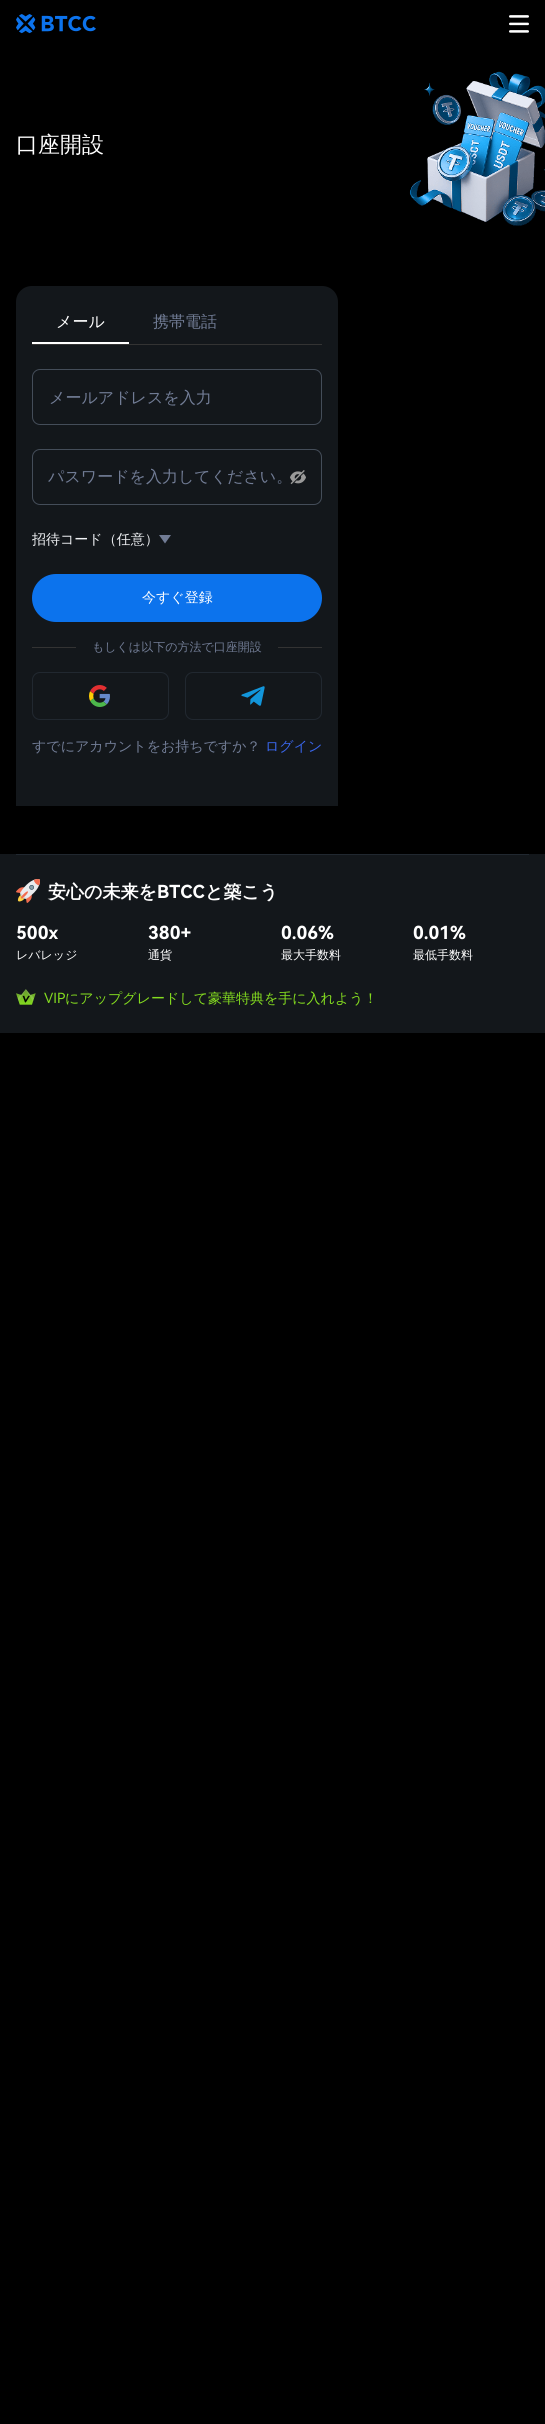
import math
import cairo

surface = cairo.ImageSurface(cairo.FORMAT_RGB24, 545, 2424)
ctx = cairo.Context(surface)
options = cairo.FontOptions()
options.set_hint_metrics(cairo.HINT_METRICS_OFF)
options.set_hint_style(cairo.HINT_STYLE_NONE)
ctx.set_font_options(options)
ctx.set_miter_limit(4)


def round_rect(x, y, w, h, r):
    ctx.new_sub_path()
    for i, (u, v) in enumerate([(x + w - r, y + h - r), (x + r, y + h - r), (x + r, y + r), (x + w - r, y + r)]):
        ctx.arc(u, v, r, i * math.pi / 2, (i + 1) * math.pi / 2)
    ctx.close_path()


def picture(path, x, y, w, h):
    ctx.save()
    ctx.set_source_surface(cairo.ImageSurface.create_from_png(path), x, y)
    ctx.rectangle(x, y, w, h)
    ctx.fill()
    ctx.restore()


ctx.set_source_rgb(0, 0, 0)
ctx.paint()
picture("img1.png", 16, 14, 80, 20)
picture("img2.png", 509, 15, 20, 18)
ctx.select_font_face("WenQuanYi Zen Hei Medium")
ctx.set_font_size(22)
ctx.set_source_rgb(1, 1, 1)
ctx.move_to(16, 152)
ctx.show_text("口座開設")
picture("img3.png", 409, 71, 136, 155)
ctx.set_source_rgb(0.075, 0.09, 0.106)
ctx.new_path()
ctx.move_to(32, 286)
ctx.line_to(322, 286)
ctx.curve_to(331, 286, 338, 293, 338, 302)
ctx.line_to(338, 806)
ctx.line_to(16, 806)
ctx.line_to(16, 302)
ctx.curve_to(16, 293, 23, 286, 32, 286)
ctx.close_path()
ctx.fill()
ctx.set_source_rgb(0.2, 0.2, 0.2)
ctx.rectangle(32, 344, 290, 1)
ctx.fill()
ctx.set_source_rgb(1, 1, 1)
ctx.rectangle(32, 342, 97, 2)
ctx.fill()
ctx.set_font_size(16)
ctx.move_to(56, 327)
ctx.show_text("メール")
ctx.set_source_rgb(0.443, 0.486, 0.584)
ctx.move_to(153, 327)
ctx.show_text("携帯電話")
round_rect(32.5, 369.5, 289, 55, 7.5)
ctx.set_source_rgb(0.267, 0.302, 0.349)
ctx.set_line_width(1)
ctx.stroke()
ctx.set_source_rgb(0.443, 0.486, 0.584)
ctx.move_to(49, 403)
ctx.show_text("メールアドレスを入力")
round_rect(32.5, 449.5, 289, 55, 7.5)
ctx.set_source_rgb(0.267, 0.302, 0.349)
ctx.stroke()
ctx.set_source_rgb(0.443, 0.486, 0.584)
ctx.move_to(48, 482)
ctx.show_text("パスワードを入力してください。")
picture("img4.png", 290, 470, 16, 15)
ctx.set_font_size(14)
ctx.set_source_rgb(0.945, 0.953, 0.961)
ctx.move_to(32, 544)
ctx.show_text("招待コード（任意）")
ctx.set_source_rgb(0.443, 0.486, 0.584)
ctx.new_path()
ctx.move_to(165, 543.5)
ctx.line_to(159, 535)
ctx.line_to(171, 535)
ctx.close_path()
ctx.fill()
ctx.set_source_rgb(0.047, 0.451, 0.929)
round_rect(32, 574, 290, 48, 24)
ctx.fill()
ctx.set_source_rgb(1, 1, 1)
ctx.move_to(142, 602)
ctx.show_text("今すぐ登録")
ctx.set_source_rgb(0.2, 0.2, 0.2)
ctx.rectangle(32, 647, 290, 1)
ctx.fill()
ctx.set_source_rgb(0.075, 0.09, 0.106)
ctx.rectangle(76, 647, 202, 1)
ctx.fill()
ctx.set_font_size(12)
ctx.set_source_rgb(0.443, 0.486, 0.584)
ctx.move_to(92, 651)
ctx.show_text("もしくは以下の方法で口座開設")
round_rect(32.5, 672.5, 136, 47, 7.5)
ctx.set_source_rgb(0.129, 0.157, 0.188)
ctx.stroke()
picture("img5.png", 89, 685, 21, 22)
round_rect(185.5, 672.5, 136, 47, 7.5)
ctx.stroke()
picture("img6.png", 241, 686, 24, 20)
ctx.set_font_size(14)
ctx.set_source_rgb(0.443, 0.486, 0.584)
ctx.move_to(32, 751)
ctx.show_text("すでにアカウントをお持ちですか？")
ctx.set_source_rgb(0.224, 0.4, 0.925)
ctx.move_to(265, 751)
ctx.show_text("ログイン")
ctx.set_source_rgb(0.075, 0.09, 0.106)
ctx.rectangle(0, 854, 545, 179)
ctx.fill()
ctx.set_source_rgb(0.129, 0.157, 0.188)
ctx.rectangle(16, 854, 513, 1)
ctx.fill()
picture("img7.png", 16, 879, 24, 24)
ctx.select_font_face("WenQuanYi Zen Hei", cairo.FONT_SLANT_NORMAL, cairo.FONT_WEIGHT_BOLD)
ctx.set_font_size(18)
ctx.set_source_rgb(1, 1, 1)
ctx.move_to(48, 898)
ctx.show_text("安心の未来を")
ctx.select_font_face("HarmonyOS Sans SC", cairo.FONT_SLANT_NORMAL, cairo.FONT_WEIGHT_BOLD)
ctx.move_to(157, 898)
ctx.show_text("BTCC")
ctx.select_font_face("WenQuanYi Zen Hei", cairo.FONT_SLANT_NORMAL, cairo.FONT_WEIGHT_BOLD)
ctx.move_to(205, 898)
ctx.show_text("と築こう")
ctx.select_font_face("HarmonyOS Sans SC", cairo.FONT_SLANT_NORMAL, cairo.FONT_WEIGHT_BOLD)
ctx.move_to(16, 939)
ctx.show_text("500x")
ctx.select_font_face("WenQuanYi Zen Hei Medium")
ctx.set_font_size(12)
ctx.move_to(16, 959)
ctx.show_text("レバレッジ")
ctx.select_font_face("HarmonyOS Sans SC", cairo.FONT_SLANT_NORMAL, cairo.FONT_WEIGHT_BOLD)
ctx.set_font_size(18)
ctx.move_to(148, 939)
ctx.show_text("380+")
ctx.select_font_face("WenQuanYi Zen Hei Medium")
ctx.set_font_size(12)
ctx.move_to(148, 959)
ctx.show_text("通貨")
ctx.select_font_face("HarmonyOS Sans SC", cairo.FONT_SLANT_NORMAL, cairo.FONT_WEIGHT_BOLD)
ctx.set_font_size(18)
ctx.move_to(281, 939)
ctx.show_text("0.06%")
ctx.select_font_face("WenQuanYi Zen Hei Medium")
ctx.set_font_size(12)
ctx.move_to(281, 959)
ctx.show_text("最大手数料")
ctx.select_font_face("HarmonyOS Sans SC", cairo.FONT_SLANT_NORMAL, cairo.FONT_WEIGHT_BOLD)
ctx.set_font_size(18)
ctx.move_to(413, 939)
ctx.show_text("0.01%")
ctx.select_font_face("WenQuanYi Zen Hei Medium")
ctx.set_font_size(12)
ctx.move_to(413, 959)
ctx.show_text("最低手数料")
picture("img8.png", 16, 989, 20, 16)
ctx.select_font_face("HarmonyOS Sans SC")
ctx.set_font_size(14)
ctx.set_source_rgb(0.518, 0.863, 0.122)
ctx.move_to(44, 1003)
ctx.show_text("VIP")
ctx.select_font_face("WenQuanYi Zen Hei Medium")
ctx.move_to(65, 1003)
ctx.show_text("にアップグレードして豪華特典を手に入れよう！")
surface.write_to_png("page.png")
